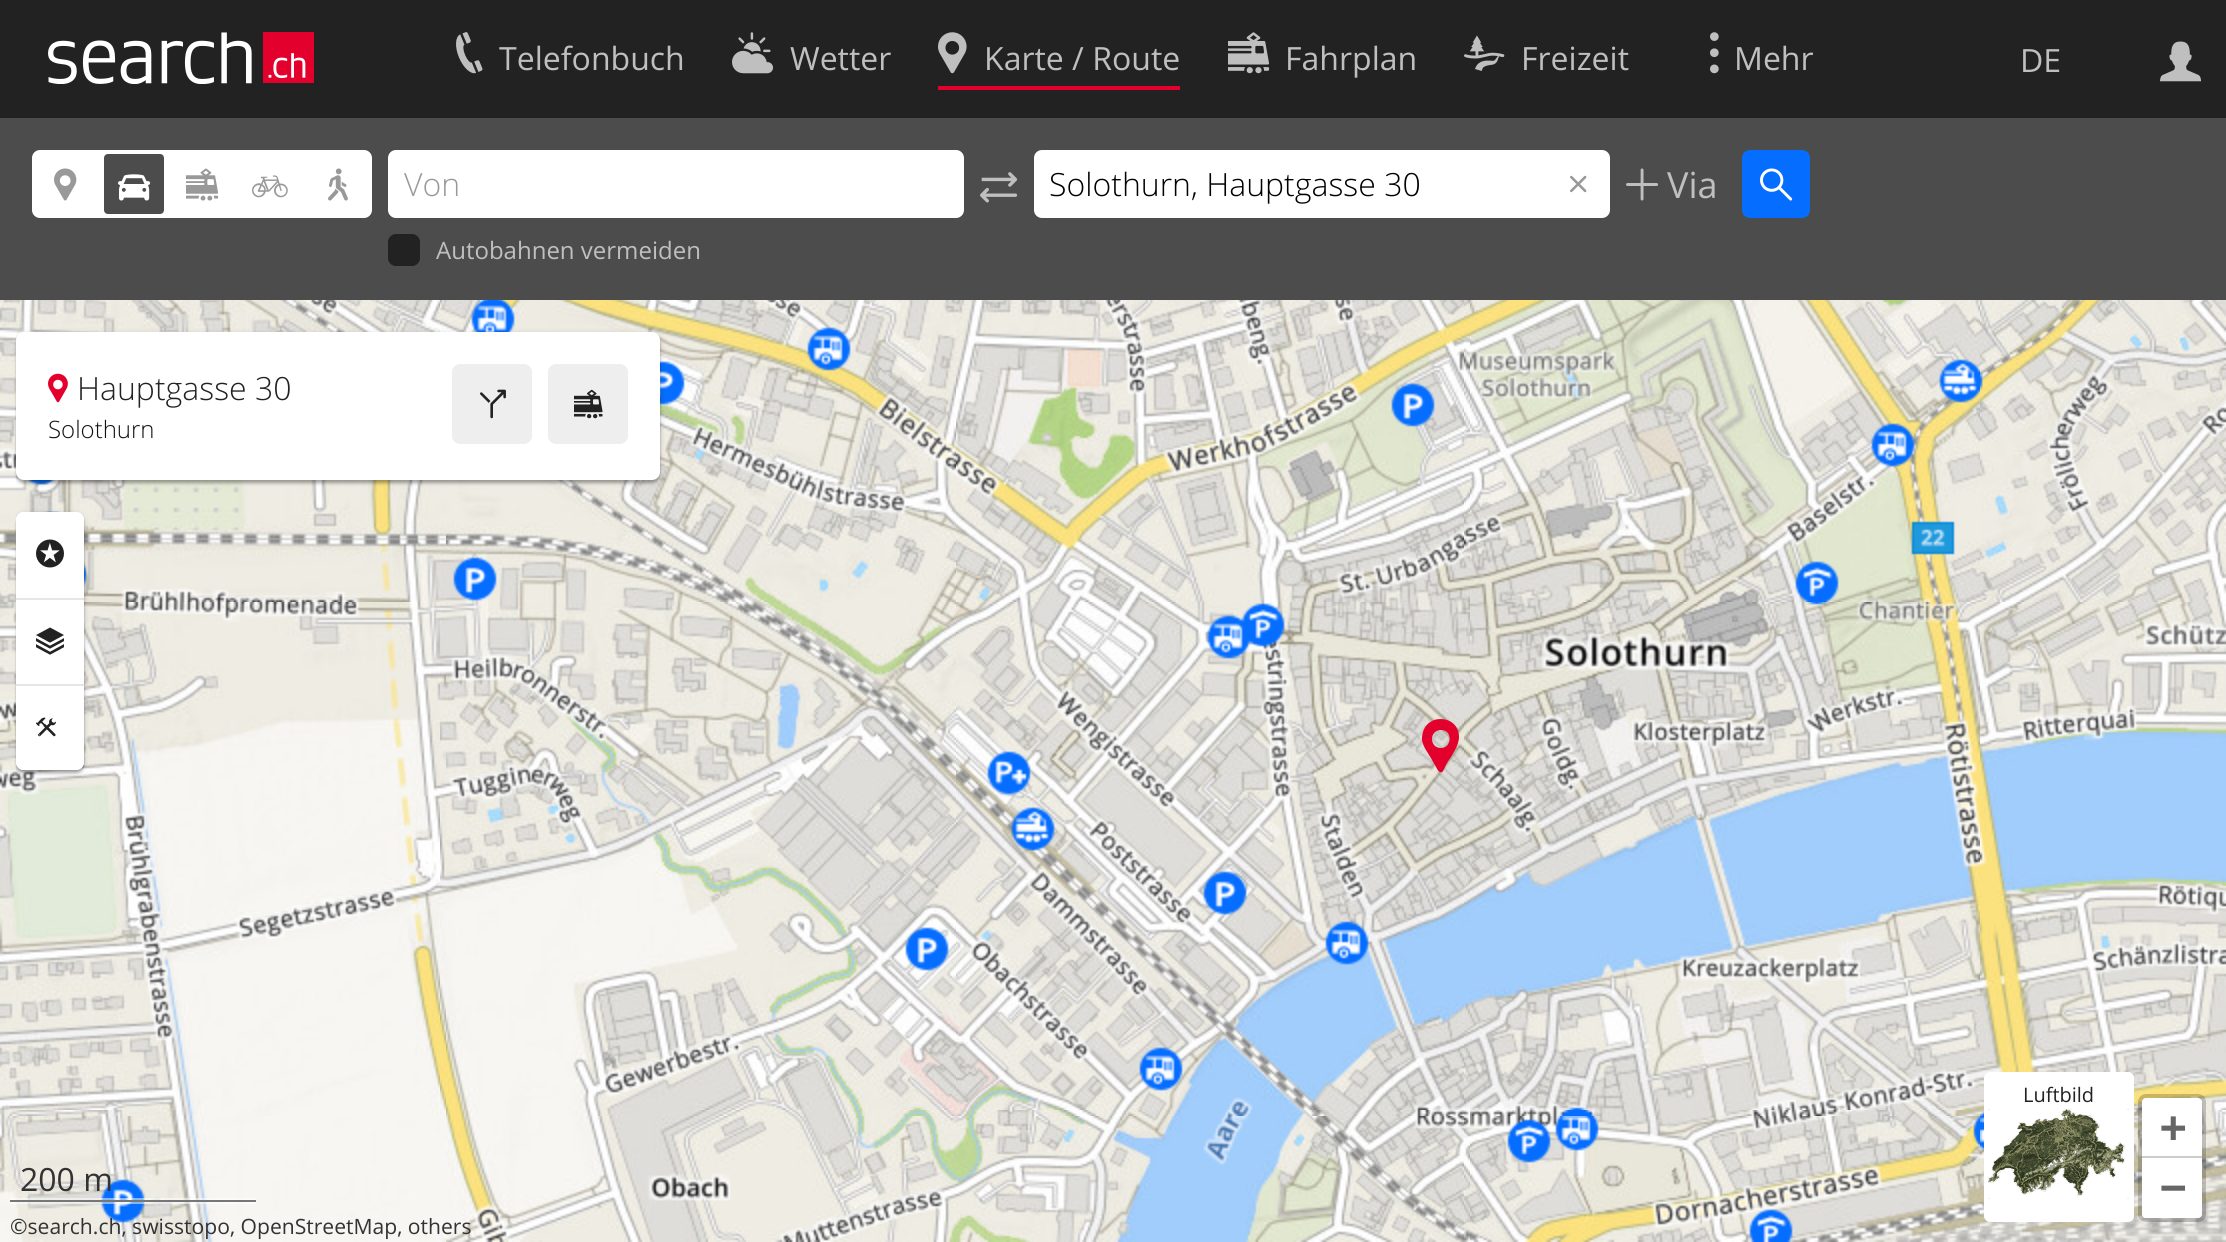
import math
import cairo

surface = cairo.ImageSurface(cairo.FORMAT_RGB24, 2226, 1242)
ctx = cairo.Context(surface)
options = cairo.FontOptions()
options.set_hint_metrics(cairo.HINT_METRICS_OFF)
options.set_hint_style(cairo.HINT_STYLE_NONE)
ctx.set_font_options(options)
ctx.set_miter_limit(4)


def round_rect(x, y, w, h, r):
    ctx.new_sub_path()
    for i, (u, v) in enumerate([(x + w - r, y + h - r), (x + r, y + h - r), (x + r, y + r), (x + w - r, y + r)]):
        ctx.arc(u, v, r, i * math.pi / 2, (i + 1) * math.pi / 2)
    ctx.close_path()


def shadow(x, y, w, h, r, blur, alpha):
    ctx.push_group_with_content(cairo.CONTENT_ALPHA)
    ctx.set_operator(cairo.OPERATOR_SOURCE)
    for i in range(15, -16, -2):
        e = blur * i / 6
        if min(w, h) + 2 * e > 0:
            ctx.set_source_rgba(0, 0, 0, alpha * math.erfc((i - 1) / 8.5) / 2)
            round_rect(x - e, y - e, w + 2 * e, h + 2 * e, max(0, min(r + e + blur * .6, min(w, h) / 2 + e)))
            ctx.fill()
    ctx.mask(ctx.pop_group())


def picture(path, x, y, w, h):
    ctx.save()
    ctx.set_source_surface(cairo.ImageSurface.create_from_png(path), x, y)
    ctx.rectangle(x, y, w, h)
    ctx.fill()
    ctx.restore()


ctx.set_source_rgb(1, 1, 1)
ctx.paint()
ctx.set_source_rgb(0.133, 0.133, 0.133)
ctx.rectangle(0, 0, 2226, 118)
ctx.fill()
picture("img1.png", 48, 32, 266, 52)
picture("img2.png", 456, 32, 27, 42)
ctx.select_font_face("Open Sans")
ctx.set_font_size(32)
ctx.set_source_rgb(0.749, 0.749, 0.749)
ctx.move_to(499, 70)
ctx.show_text("Telefonbuch")
picture("img3.png", 732, 32, 42, 42)
ctx.move_to(790, 70)
ctx.show_text("Wetter")
ctx.set_source_rgb(0.894, 0, 0.173)
ctx.rectangle(938, 86, 242, 4)
ctx.fill()
picture("img4.png", 938, 32, 29, 42)
ctx.set_source_rgb(0.749, 0.749, 0.749)
ctx.move_to(984, 70)
ctx.show_text("Karte / Route")
picture("img5.png", 1228, 32, 42, 42)
ctx.move_to(1285, 70)
ctx.show_text("Fahrplan")
picture("img6.png", 1464, 35, 41, 36)
ctx.move_to(1521, 70)
ctx.show_text("Freizeit")
picture("img7.png", 1710, 32, 9, 42)
ctx.move_to(1734, 70)
ctx.show_text("Mehr")
ctx.move_to(2020, 72)
ctx.show_text("DE")
picture("img8.png", 2160, 41, 42, 41)
ctx.set_source_rgb(0.298, 0.298, 0.298)
ctx.rectangle(0, 118, 2226, 182)
ctx.fill()
ctx.set_source_rgb(1, 1, 1)
round_rect(32, 150, 340, 68, 8)
ctx.fill()
picture("img9.png", 54, 168, 23, 33)
ctx.set_source_rgb(0.298, 0.298, 0.298)
round_rect(102, 152, 64, 64, 6)
ctx.fill_preserve()
ctx.set_source_rgb(1, 1, 1)
ctx.set_line_width(4)
ctx.stroke()
picture("img10.png", 186, 168, 33, 33)
picture("img11.png", 328, 168, 20, 33)
picture("img12.png", 118, 174, 33, 27)
picture("img13.png", 252, 175, 36, 23)
round_rect(388, 150, 576, 68, 8)
ctx.fill()
ctx.select_font_face("Open Sans Light")
ctx.set_source_rgb(0.6, 0.6, 0.6)
ctx.move_to(404, 196)
ctx.show_text("Von")
picture("img14.png", 980, 172, 38, 31)
ctx.set_source_rgb(1, 1, 1)
round_rect(1034, 150, 576, 68, 8)
ctx.fill()
ctx.set_source_rgb(0, 0, 0)
ctx.move_to(1049, 196)
ctx.show_text("Solothurn, Hauptgasse 30")
picture("img15.png", 1570, 175, 17, 18)
picture("img16.png", 1626, 168, 33, 33)
ctx.select_font_face("Open Sans")
ctx.set_font_size(36)
ctx.set_source_rgb(0.749, 0.749, 0.749)
ctx.move_to(1667, 198)
ctx.show_text("Via")
ctx.set_source_rgb(0.02, 0.427, 1)
round_rect(1742, 150, 68, 68, 8)
ctx.fill()
picture("img17.png", 1760, 168, 33, 33)
ctx.set_source_rgb(0.133, 0.133, 0.133)
round_rect(388, 234, 32, 32, 8)
ctx.fill()
ctx.set_font_size(24)
ctx.set_source_rgb(0.749, 0.749, 0.749)
ctx.move_to(436, 259)
ctx.show_text("Autobahnen vermeiden")
picture("img25.png", 0, 300, 446, 816)
picture("img26.png", 446, 300, 1024, 816)
picture("img31.png", 0, 300, 399, 742)
picture("img32.png", 447, 300, 1023, 816)
ctx.save()
ctx.rectangle(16, 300, 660, 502)
ctx.clip()
ctx.set_source_rgb(0, 0, 0)
shadow(16, 334, 644, 148, 8, 3, 0.2)
ctx.restore()
ctx.set_source_rgb(0, 0, 0)
shadow(16, 336, 644, 148, 8, 1, 0.12)
shadow(16, 334, 644, 148, 8, 1, 0.14)
ctx.set_source_rgb(1, 1, 1)
round_rect(16, 332, 644, 148, 8)
ctx.fill()
picture("img18.png", 48, 373, 20, 30)
ctx.select_font_face("Open Sans Light")
ctx.set_font_size(32)
ctx.set_source_rgb(0.133, 0.133, 0.133)
ctx.move_to(77, 400)
ctx.show_text("Hauptgasse 30")
ctx.set_source_rgb(0.933, 0.933, 0.933)
round_rect(452, 364, 80, 80, 8)
ctx.fill()
picture("img19.png", 480, 389, 26, 30)
round_rect(548, 364, 80, 80, 8)
ctx.fill()
picture("img20.png", 574, 389, 29, 30)
ctx.set_font_size(24)
ctx.set_source_rgb(0.067, 0.067, 0.067)
ctx.move_to(48, 438)
ctx.show_text("Solothurn")
ctx.save()
ctx.rectangle(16, 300, 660, 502)
ctx.clip()
ctx.set_source_rgb(0, 0, 0)
shadow(16, 514, 68, 258, 8, 3, 0.2)
ctx.restore()
ctx.set_source_rgb(0, 0, 0)
shadow(16, 516, 68, 258, 8, 1, 0.12)
shadow(16, 514, 68, 258, 8, 1, 0.14)
ctx.set_source_rgb(1, 1, 1)
round_rect(16, 512, 68, 258, 8)
ctx.fill()
ctx.new_path()
ctx.move_to(24, 512)
ctx.line_to(76, 512)
ctx.curve_to(80.5, 512, 84, 515.5, 84, 520)
ctx.line_to(84, 600)
ctx.line_to(16, 600)
ctx.line_to(16, 520)
ctx.curve_to(16, 515.5, 19.5, 512, 24, 512)
ctx.close_path()
ctx.fill()
ctx.set_source_rgb(0.902, 0.902, 0.902)
ctx.rectangle(16, 598, 68, 2)
ctx.fill()
picture("img21.png", 36, 539, 28, 29)
ctx.rectangle(16, 684, 68, 2)
ctx.fill()
picture("img22.png", 36, 627, 28, 28)
ctx.set_source_rgb(1, 1, 1)
ctx.new_path()
ctx.move_to(16, 686)
ctx.line_to(84, 686)
ctx.line_to(84, 762)
ctx.curve_to(84, 766.5, 80.5, 770, 76, 770)
ctx.line_to(24, 770)
ctx.curve_to(19.5, 770, 16, 766.5, 16, 762)
ctx.close_path()
ctx.fill()
picture("img23.png", 36, 717, 20, 20)
picture("img27.png", 1470, 300, 756, 816)
picture("img30.png", 1470, 1116, 756, 126)
picture("img33.png", 1470, 348, 756, 768)
round_rect(1984, 1072, 150, 150, 6)
ctx.fill()
picture("img24.png", 1988, 1109, 141, 90)
ctx.select_font_face("Open Sans")
ctx.set_font_size(20)
ctx.set_source_rgb(0.133, 0.133, 0.133)
ctx.move_to(2023, 1102)
ctx.show_text("Luftbild")
picture("img28.png", 0, 1116, 446, 126)
picture("img29.png", 446, 1116, 1024, 126)
picture("img34.png", 101, 1179, 44, 44)
picture("img35.png", 474, 1116, 996, 126)
picture("img36.png", 1470, 1116, 514, 126)
ctx.set_source_rgb(0.894, 0, 0.173)
ctx.new_path()
ctx.move_to(1459, 737)
ctx.curve_to(1459, 714, 1424, 712, 1422, 737)
ctx.curve_to(1421, 745, 1429, 754, 1432, 760)
ctx.line_to(1436, 767)
ctx.curve_to(1437, 769, 1440, 775, 1443, 771)
ctx.line_to(1447, 763)
ctx.curve_to(1451, 757, 1459, 746, 1459, 737)
ctx.close_path()
ctx.move_to(1441, 748)
ctx.curve_to(1429, 748, 1429, 730, 1441, 730)
ctx.curve_to(1453, 730, 1452, 748, 1441, 748)
ctx.close_path()
ctx.fill()
round_rect(2140, 1096, 64, 124, 6)
ctx.set_source_rgba(0, 0, 0, 0.2)
ctx.stroke()
ctx.set_source_rgb(1, 1, 1)
ctx.new_path()
ctx.move_to(2146, 1098)
ctx.line_to(2198, 1098)
ctx.curve_to(2200, 1098, 2202, 1100, 2202, 1102)
ctx.line_to(2202, 1158)
ctx.line_to(2142, 1158)
ctx.line_to(2142, 1102)
ctx.curve_to(2142, 1100, 2144, 1098, 2146, 1098)
ctx.close_path()
ctx.fill()
ctx.set_source_rgb(0.8, 0.8, 0.8)
ctx.rectangle(2142, 1156, 60, 2)
ctx.fill()
ctx.select_font_face("DejaVu Sans Mono", cairo.FONT_SLANT_NORMAL, cairo.FONT_WEIGHT_BOLD)
ctx.set_font_size(44)
ctx.set_source_rgb(0.4, 0.4, 0.4)
ctx.move_to(2160, 1142)
ctx.show_text("+")
ctx.set_source_rgb(1, 1, 1)
ctx.new_path()
ctx.move_to(2142, 1158)
ctx.line_to(2202, 1158)
ctx.line_to(2202, 1214)
ctx.curve_to(2202, 1216, 2200, 1218, 2198, 1218)
ctx.line_to(2146, 1218)
ctx.curve_to(2144, 1218, 2142, 1216, 2142, 1214)
ctx.close_path()
ctx.fill()
ctx.set_source_rgb(0.4, 0.4, 0.4)
ctx.move_to(2160, 1202)
ctx.show_text("−")
ctx.set_source_rgba(1, 1, 1, 0.5)
ctx.rectangle(10, 1202, 246, 2)
ctx.fill()
ctx.rectangle(10, 1198, 246, 2)
ctx.fill()
ctx.set_source_rgb(0.467, 0.467, 0.467)
ctx.rectangle(10, 1200, 246, 2)
ctx.fill()
ctx.select_font_face("Open Sans")
ctx.set_font_size(32)
ctx.set_source_rgb(0.2, 0.2, 0.2)
ctx.move_to(20, 1191)
ctx.show_text("200 m")
ctx.set_font_size(21.1)
ctx.move_to(10, 1234)
ctx.show_text("©search.ch, swisstopo, OpenStreetMap, others")
surface.write_to_png("page.png")
